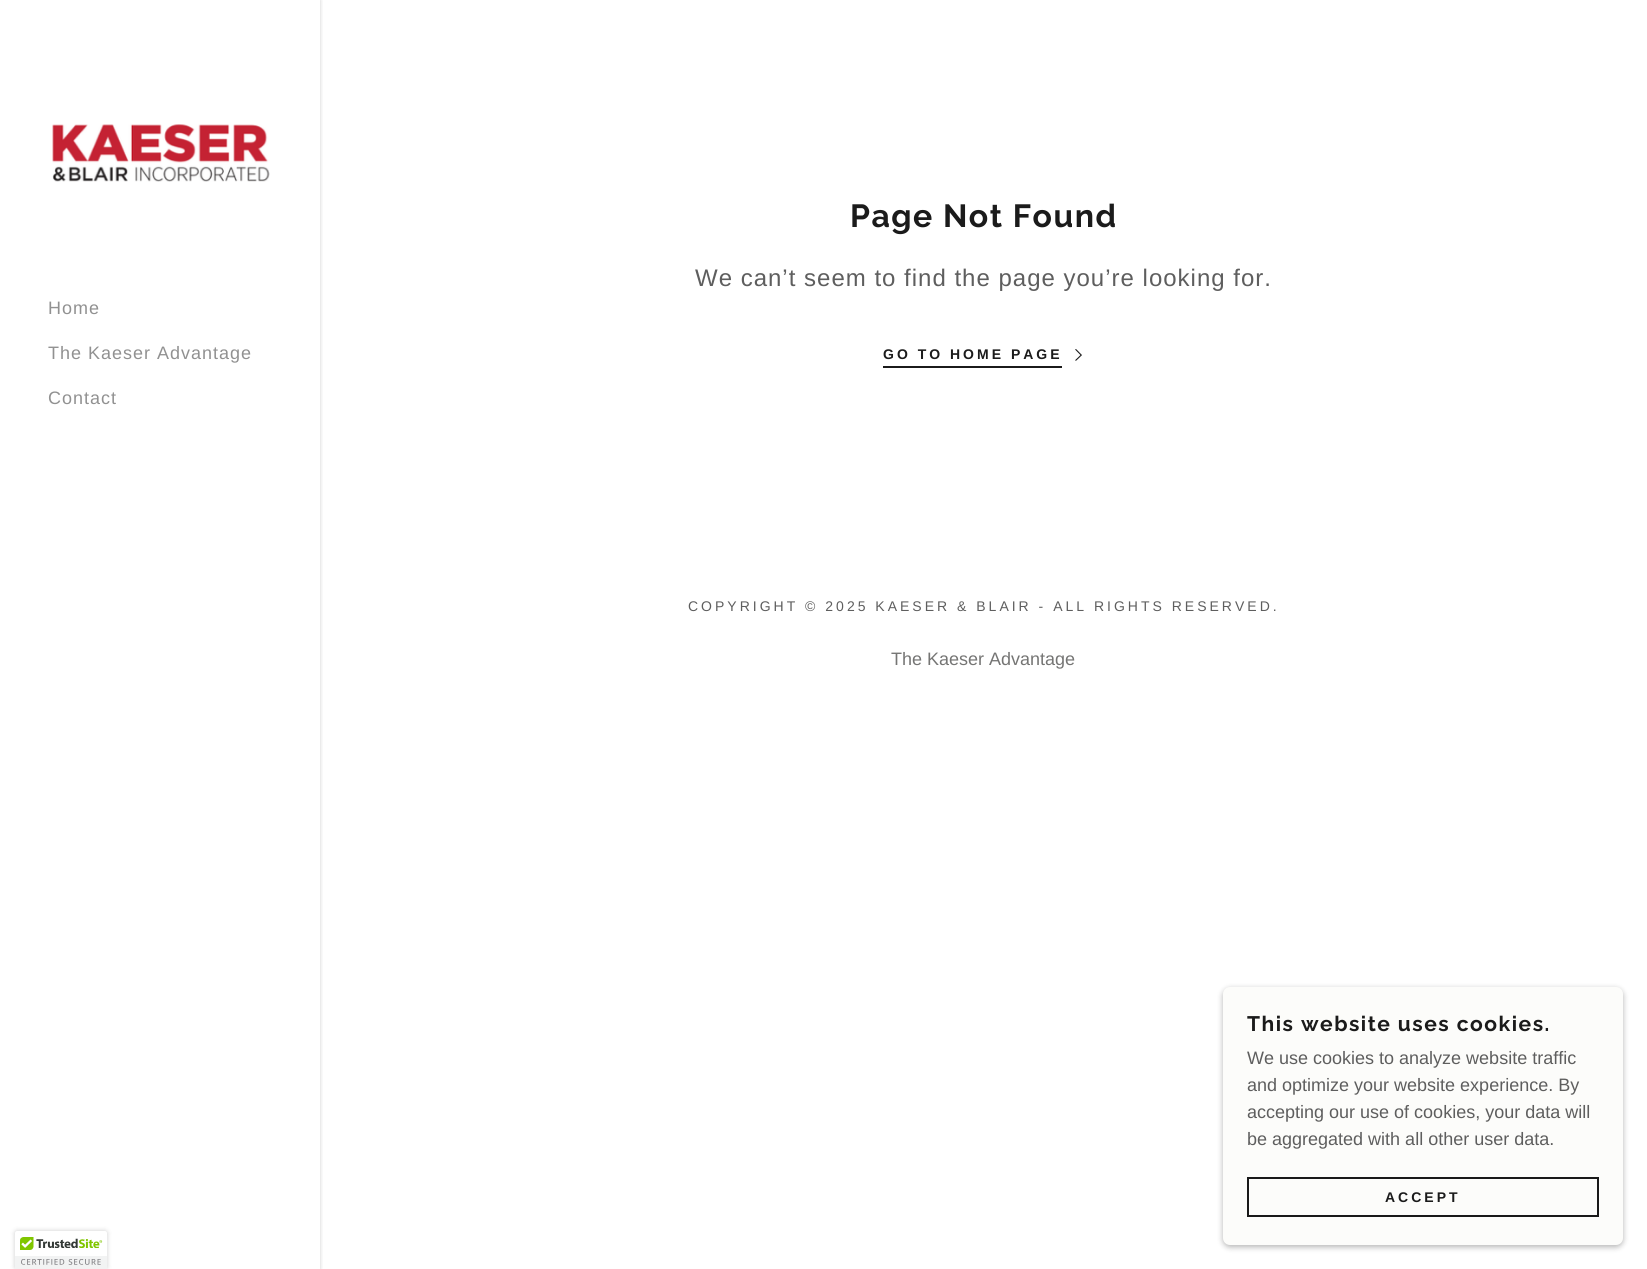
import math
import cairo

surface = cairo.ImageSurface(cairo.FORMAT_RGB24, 1647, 1269)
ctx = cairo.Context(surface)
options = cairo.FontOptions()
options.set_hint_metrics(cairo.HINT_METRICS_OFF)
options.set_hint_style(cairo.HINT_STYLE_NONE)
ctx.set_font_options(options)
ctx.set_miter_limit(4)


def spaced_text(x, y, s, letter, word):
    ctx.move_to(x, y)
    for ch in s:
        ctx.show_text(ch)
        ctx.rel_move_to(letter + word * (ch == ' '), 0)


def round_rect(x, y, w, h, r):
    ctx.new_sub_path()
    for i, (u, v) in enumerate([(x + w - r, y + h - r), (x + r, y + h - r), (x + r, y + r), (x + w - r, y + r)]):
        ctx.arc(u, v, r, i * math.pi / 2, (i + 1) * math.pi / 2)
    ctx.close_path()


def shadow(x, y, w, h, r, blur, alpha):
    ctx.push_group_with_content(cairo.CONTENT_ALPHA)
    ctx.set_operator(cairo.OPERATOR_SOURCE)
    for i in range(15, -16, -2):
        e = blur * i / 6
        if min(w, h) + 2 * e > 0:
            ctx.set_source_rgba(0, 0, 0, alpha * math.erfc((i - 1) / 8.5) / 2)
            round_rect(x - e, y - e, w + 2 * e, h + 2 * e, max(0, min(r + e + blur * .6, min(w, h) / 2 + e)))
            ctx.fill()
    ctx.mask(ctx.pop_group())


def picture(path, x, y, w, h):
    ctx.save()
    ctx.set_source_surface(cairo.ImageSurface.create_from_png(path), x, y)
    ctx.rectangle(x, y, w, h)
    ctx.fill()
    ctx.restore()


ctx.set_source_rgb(1, 1, 1)
ctx.paint()
ctx.save()
ctx.rectangle(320, 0, 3, 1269)
ctx.clip()
ctx.set_source_rgb(0, 0, 0)
shadow(0, 0, 320, 1269, 0, 2, 0.2)
ctx.restore()
picture("img1.png", 52, 124, 218, 58)
ctx.select_font_face("Liberation Sans")
ctx.set_font_size(18)
ctx.set_source_rgb(0.569, 0.569, 0.569)
spaced_text(48, 314, "Home", 1, 0)
spaced_text(48, 359, "The Kaeser Advantage", 1, 0)
spaced_text(48, 404, "Contact", 1, 0)
ctx.select_font_face("Raleway", cairo.FONT_SLANT_NORMAL, cairo.FONT_WEIGHT_BOLD)
ctx.set_font_size(32)
ctx.set_source_rgb(0.106, 0.106, 0.106)
spaced_text(850, 227, "Page Not Found", 1.5, 0)
ctx.select_font_face("Liberation Sans")
ctx.set_font_size(24)
ctx.set_source_rgb(0.369, 0.369, 0.369)
spaced_text(695, 286, "We can’t seem to find the page you’re looking for.", 1, 0)
ctx.set_source_rgb(0.106, 0.106, 0.106)
ctx.rectangle(883, 366, 179, 2)
ctx.fill()
ctx.select_font_face("Liberation Sans", cairo.FONT_SLANT_NORMAL, cairo.FONT_WEIGHT_BOLD)
ctx.set_font_size(14)
spaced_text(883, 359, "GO TO HOME PAGE", 3, 0)
picture("img2.png", 1075, 349, 7, 12)
ctx.select_font_face("Liberation Sans")
ctx.set_source_rgb(0.369, 0.369, 0.369)
spaced_text(688, 611, "COPYRIGHT © 2025 KAESER & BLAIR - ALL RIGHTS RESERVED.", 3, 0)
ctx.set_font_size(18)
ctx.set_source_rgb(0.459, 0.459, 0.455)
ctx.move_to(891, 665)
ctx.show_text("The Kaeser Advantage")
ctx.set_source_rgb(0, 0, 0)
shadow(1223, 989, 400, 258, 7, 3, 0.3)
ctx.set_source_rgb(0.988, 0.988, 0.98)
round_rect(1223, 987, 400, 258, 7)
ctx.fill()
ctx.select_font_face("Raleway", cairo.FONT_SLANT_NORMAL, cairo.FONT_WEIGHT_BOLD)
ctx.set_font_size(21)
ctx.set_source_rgb(0.106, 0.106, 0.106)
spaced_text(1247, 1031, "This website uses cookies.", 1.5, 0)
ctx.select_font_face("Liberation Sans")
ctx.set_font_size(18)
ctx.set_source_rgb(0.369, 0.369, 0.369)
ctx.move_to(1247, 1064)
ctx.show_text("We use cookies to analyze website traffic")
ctx.move_to(1247, 1091)
ctx.show_text("and optimize your website experience. By")
ctx.move_to(1247, 1118)
ctx.show_text("accepting our use of cookies, your data will")
ctx.move_to(1247, 1145)
ctx.show_text("be aggregated with all other user data.")
ctx.rectangle(1248, 1178, 350, 38)
ctx.set_source_rgb(0.098, 0.098, 0.098)
ctx.stroke()
ctx.select_font_face("Liberation Sans", cairo.FONT_SLANT_NORMAL, cairo.FONT_WEIGHT_BOLD)
ctx.set_font_size(14)
ctx.set_source_rgb(0.106, 0.106, 0.106)
spaced_text(1385, 1202, "ACCEPT", 3, 0)
ctx.set_source_rgb(0, 0, 0)
shadow(15, 1231, 92, 38, 2, 2.5, 0.2)
ctx.set_source_rgb(1, 1, 1)
ctx.new_path()
ctx.move_to(17, 1231)
ctx.line_to(105, 1231)
ctx.curve_to(106, 1231, 107, 1232, 107, 1233)
ctx.line_to(107, 1269)
ctx.line_to(15, 1269)
ctx.line_to(15, 1233)
ctx.curve_to(15, 1232, 16, 1231, 17, 1231)
ctx.close_path()
ctx.fill()
picture("img3.png", 15, 1237, 92, 32)
surface.write_to_png("page.png")
